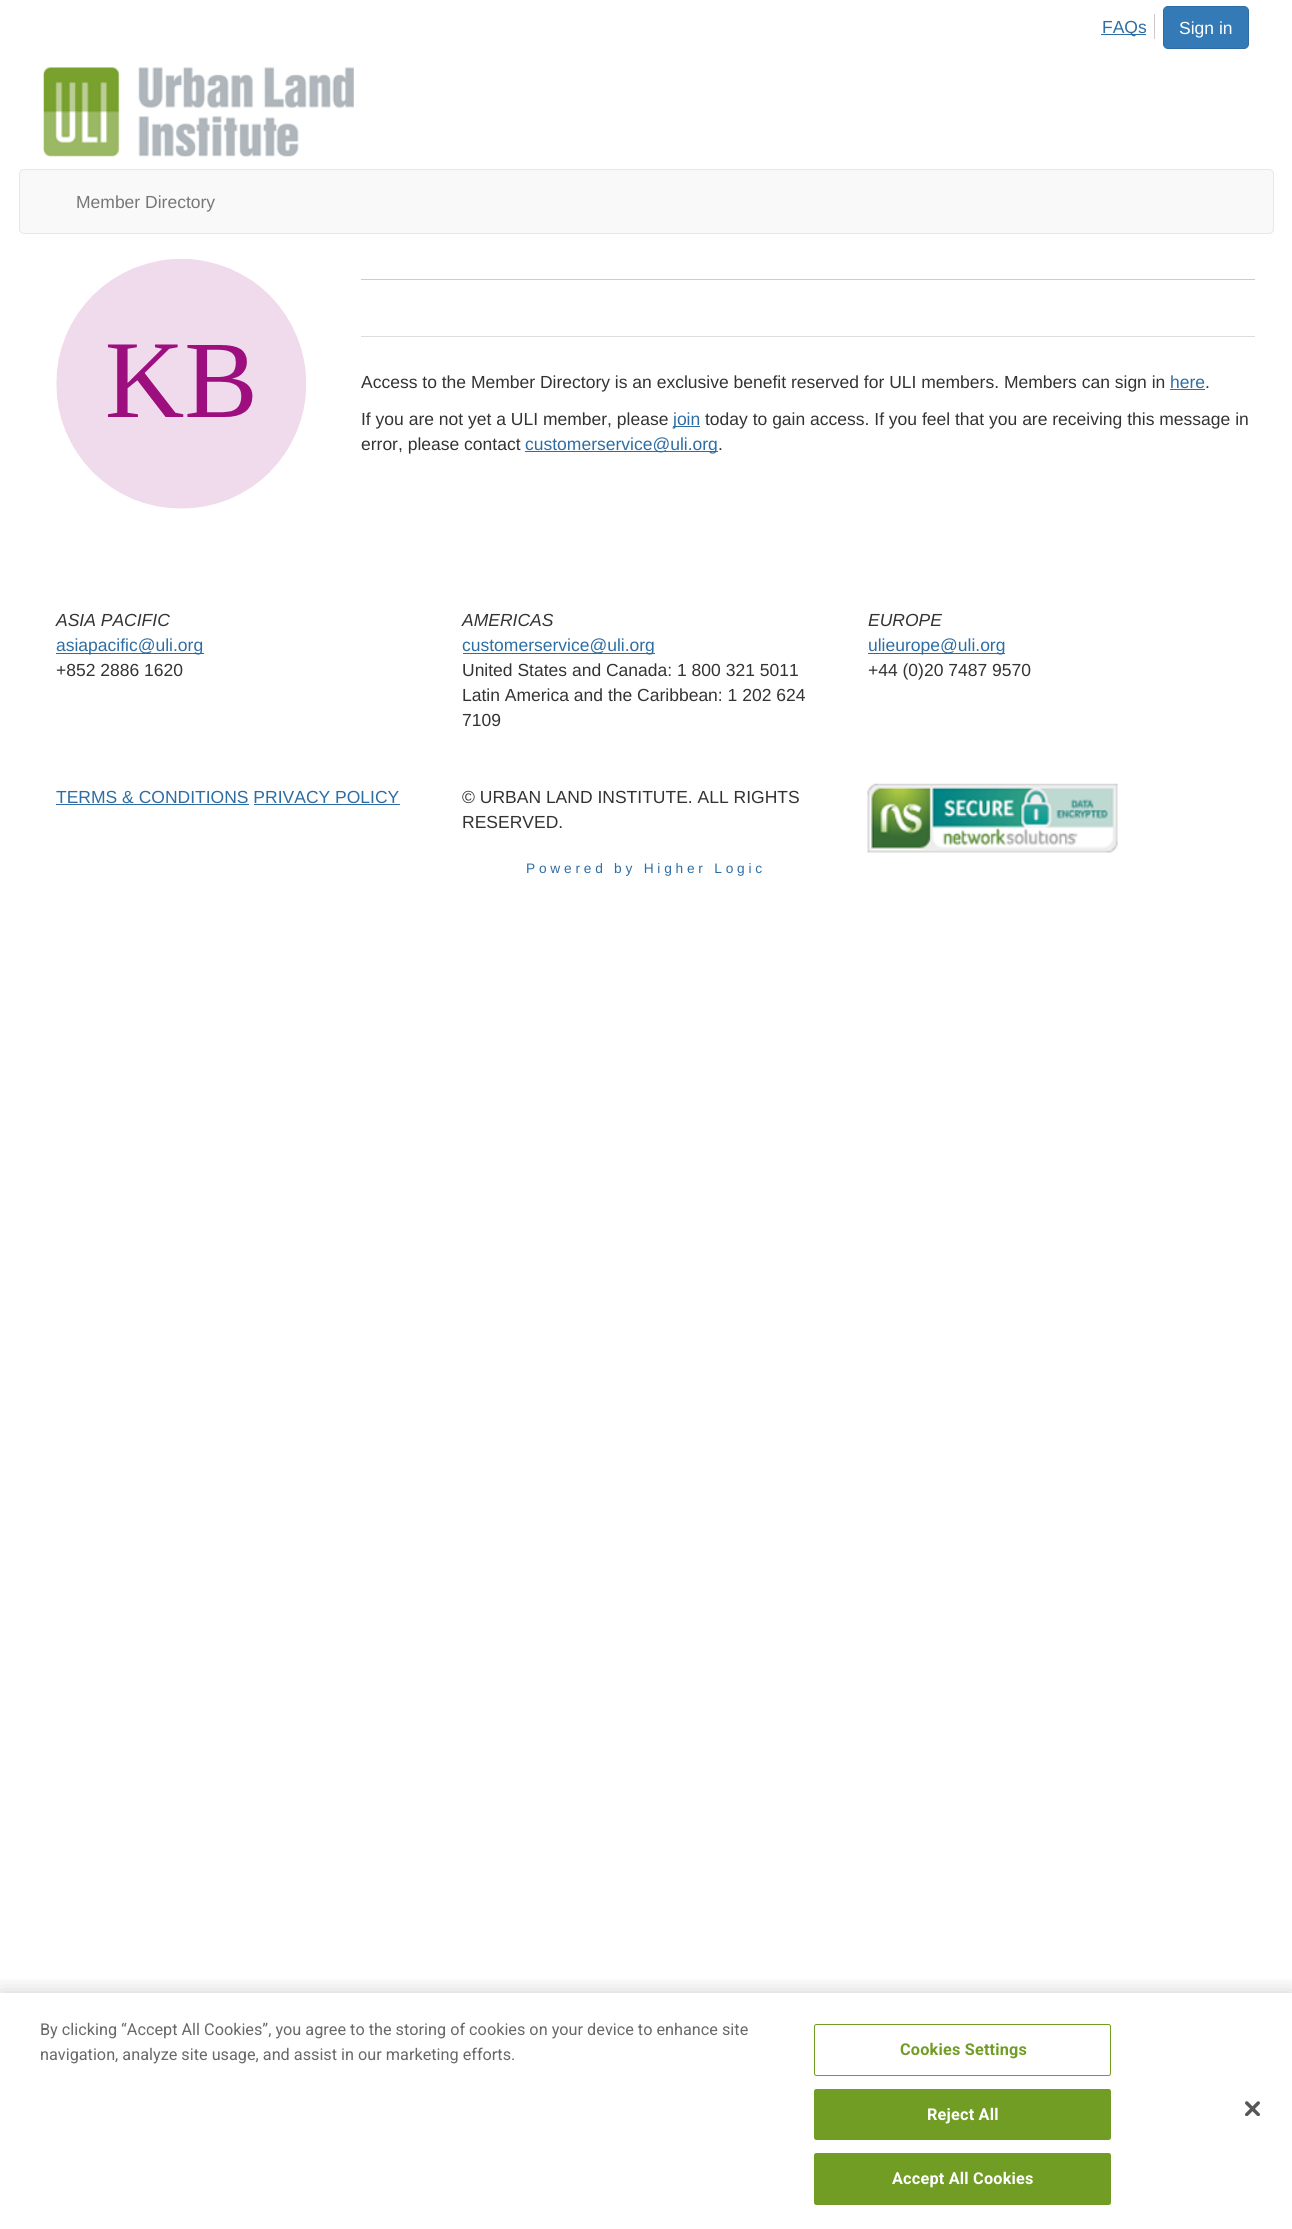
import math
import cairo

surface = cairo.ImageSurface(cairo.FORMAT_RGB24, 1292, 2229)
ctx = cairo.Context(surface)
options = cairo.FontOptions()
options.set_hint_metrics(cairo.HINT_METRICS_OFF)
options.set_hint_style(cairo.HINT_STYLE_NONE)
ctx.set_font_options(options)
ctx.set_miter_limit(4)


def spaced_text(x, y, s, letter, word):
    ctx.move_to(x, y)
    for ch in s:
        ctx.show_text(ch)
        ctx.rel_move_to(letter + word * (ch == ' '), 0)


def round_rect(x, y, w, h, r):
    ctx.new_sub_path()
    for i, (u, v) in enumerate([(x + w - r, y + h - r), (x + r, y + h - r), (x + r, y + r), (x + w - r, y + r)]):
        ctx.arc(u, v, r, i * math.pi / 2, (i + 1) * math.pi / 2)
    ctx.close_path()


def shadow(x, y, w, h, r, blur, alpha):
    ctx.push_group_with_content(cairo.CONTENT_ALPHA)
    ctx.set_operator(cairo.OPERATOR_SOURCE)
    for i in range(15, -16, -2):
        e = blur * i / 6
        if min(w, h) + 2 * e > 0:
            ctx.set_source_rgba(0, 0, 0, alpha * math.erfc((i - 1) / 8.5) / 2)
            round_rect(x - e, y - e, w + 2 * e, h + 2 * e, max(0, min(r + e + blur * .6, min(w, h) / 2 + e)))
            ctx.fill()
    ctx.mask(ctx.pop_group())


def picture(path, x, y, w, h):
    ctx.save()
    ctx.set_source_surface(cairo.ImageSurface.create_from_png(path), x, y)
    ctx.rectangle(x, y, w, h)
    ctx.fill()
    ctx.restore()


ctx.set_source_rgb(1, 1, 1)
ctx.paint()
ctx.set_source_rgb(0.8, 0.8, 0.8)
ctx.rectangle(1154, 14, 1, 25)
ctx.fill()
ctx.set_source_rgb(0.18, 0.427, 0.643)
ctx.rectangle(1101, 34, 45, 1)
ctx.fill()
ctx.select_font_face("Liberation Sans")
ctx.set_font_size(17.5)
ctx.move_to(1102, 33)
ctx.show_text("FAQs")
ctx.set_source_rgb(0.2, 0.478, 0.718)
round_rect(1163.5, 6.5, 85, 42, 4.5)
ctx.fill_preserve()
ctx.set_source_rgb(0.18, 0.427, 0.643)
ctx.set_line_width(1)
ctx.stroke()
ctx.set_source_rgb(1, 1, 1)
ctx.move_to(1179, 34)
ctx.show_text("Sign in")
picture("img1.png", 43, 67, 311, 90)
ctx.set_source_rgb(0.973, 0.973, 0.973)
round_rect(19.5, 169.5, 1254, 64, 4.5)
ctx.fill_preserve()
ctx.set_source_rgb(0.906, 0.906, 0.906)
ctx.stroke()
ctx.set_source_rgb(0.467, 0.467, 0.467)
ctx.move_to(76, 208)
ctx.show_text("Member Directory")
picture("img2.png", 56, 259, 250, 250)
ctx.set_source_rgb(0.8, 0.8, 0.8)
ctx.rectangle(361, 279, 894, 1)
ctx.fill()
ctx.set_source_rgb(0.867, 0.867, 0.867)
ctx.rectangle(361, 336, 894, 1)
ctx.fill()
ctx.set_source_rgb(0.2, 0.2, 0.2)
ctx.move_to(361, 388)
ctx.show_text("Access to the Member Directory is an exclusive benefit reserved for ULI members. Members can sign in")
ctx.set_source_rgb(0.18, 0.427, 0.643)
ctx.move_to(1170, 388)
ctx.show_text("here")
ctx.rectangle(1170, 389, 35, 1)
ctx.fill()
ctx.set_source_rgb(0.2, 0.2, 0.2)
ctx.move_to(1205, 388)
ctx.show_text(".")
ctx.move_to(361, 425)
ctx.show_text("If you are not yet a ULI member, please")
ctx.set_source_rgb(0.18, 0.427, 0.643)
ctx.rectangle(673, 426, 27, 1)
ctx.fill()
ctx.move_to(673, 425)
ctx.show_text("join")
ctx.set_source_rgb(0.2, 0.2, 0.2)
ctx.move_to(705, 425)
ctx.show_text("today to gain access. If you feel that you are receiving this message in")
ctx.move_to(361, 450)
ctx.show_text("error, please contact")
ctx.set_source_rgb(0.18, 0.427, 0.643)
ctx.rectangle(525, 451, 193, 1)
ctx.fill()
ctx.move_to(525, 450)
ctx.show_text("customerservice@uli.org")
ctx.set_source_rgb(0.2, 0.2, 0.2)
ctx.move_to(718, 450)
ctx.show_text(".")
ctx.select_font_face("Liberation Sans", cairo.FONT_SLANT_ITALIC)
ctx.move_to(56, 626)
ctx.show_text("ASIA PACIFIC")
ctx.set_source_rgb(0.18, 0.427, 0.643)
ctx.rectangle(56, 653, 148, 1)
ctx.fill()
ctx.select_font_face("Liberation Sans")
ctx.move_to(56, 651)
ctx.show_text("asiapacific@uli.org")
ctx.set_source_rgb(0.2, 0.2, 0.2)
ctx.move_to(56, 676)
ctx.show_text("+852 2886 1620")
ctx.select_font_face("Liberation Sans", cairo.FONT_SLANT_ITALIC)
ctx.move_to(462, 626)
ctx.show_text("AMERICAS")
ctx.set_source_rgb(0.18, 0.427, 0.643)
ctx.rectangle(463, 653, 192, 1)
ctx.fill()
ctx.select_font_face("Liberation Sans")
ctx.move_to(462, 651)
ctx.show_text("customerservice@uli.org")
ctx.set_source_rgb(0.2, 0.2, 0.2)
ctx.move_to(462, 676)
ctx.show_text("United States and Canada: 1 800 321 5011")
ctx.move_to(462, 701)
ctx.show_text("Latin America and the Caribbean: 1 202 624")
ctx.move_to(462, 726)
ctx.show_text("7109")
ctx.select_font_face("Liberation Sans", cairo.FONT_SLANT_ITALIC)
ctx.move_to(868, 626)
ctx.show_text("EUROPE")
ctx.set_source_rgb(0.18, 0.427, 0.643)
ctx.rectangle(868, 653, 137, 1)
ctx.fill()
ctx.select_font_face("Liberation Sans")
ctx.move_to(868, 651)
ctx.show_text("ulieurope@uli.org")
ctx.set_source_rgb(0.2, 0.2, 0.2)
ctx.move_to(868, 676)
ctx.show_text("+44 (0)20 7487 9570")
ctx.set_source_rgb(0.18, 0.427, 0.643)
ctx.move_to(56, 803)
ctx.show_text("TERMS & CONDITIONS PRIVACY POLICY")
ctx.rectangle(56, 804, 193, 1)
ctx.fill()
ctx.rectangle(254, 804, 146, 1)
ctx.fill()
ctx.set_source_rgb(0.2, 0.2, 0.2)
ctx.move_to(462, 803)
ctx.show_text("© URBAN LAND INSTITUTE. ALL RIGHTS")
ctx.move_to(462, 828)
ctx.show_text("RESERVED.")
picture("img3.png", 867, 783, 251, 70)
ctx.set_font_size(13.75)
ctx.set_source_rgb(0.18, 0.427, 0.643)
spaced_text(526, 873, "Powered by Higher Logic", 3.75, 0)
ctx.save()
ctx.rectangle(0, 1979, 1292, 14)
ctx.clip()
ctx.set_source_rgb(0, 0, 0)
shadow(0, 1993, 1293, 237, 0, 11, 0.2)
ctx.restore()
ctx.select_font_face("Roboto")
ctx.set_font_size(16.25)
ctx.set_source_rgb(0.412, 0.412, 0.412)
ctx.move_to(40, 2035)
ctx.show_text("By clicking “Accept All Cookies”, you agree to the storing of cookies on your device to enhance site")
ctx.move_to(40, 2060)
ctx.show_text("navigation, analyze site usage, and assist in our marketing efforts.")
round_rect(814.5, 2024.5, 296, 51, 2)
ctx.set_source_rgb(0.443, 0.616, 0.145)
ctx.stroke()
ctx.select_font_face("Roboto", cairo.FONT_SLANT_NORMAL, cairo.FONT_WEIGHT_BOLD)
spaced_text(900, 2055, "Cookies Settings", 0.2, 0)
round_rect(814.5, 2089.5, 296, 50, 2)
ctx.fill_preserve()
ctx.stroke()
ctx.set_source_rgb(1, 1, 1)
spaced_text(927, 2120, "Reject All", 0.2, 0)
ctx.set_source_rgb(0.443, 0.616, 0.145)
round_rect(814.5, 2153.5, 296, 51, 2)
ctx.fill_preserve()
ctx.stroke()
ctx.set_source_rgb(1, 1, 1)
spaced_text(892, 2184, "Accept All Cookies", 0.2, 0)
picture("img4.png", 1245, 2101, 15, 15)
surface.write_to_png("page.png")
